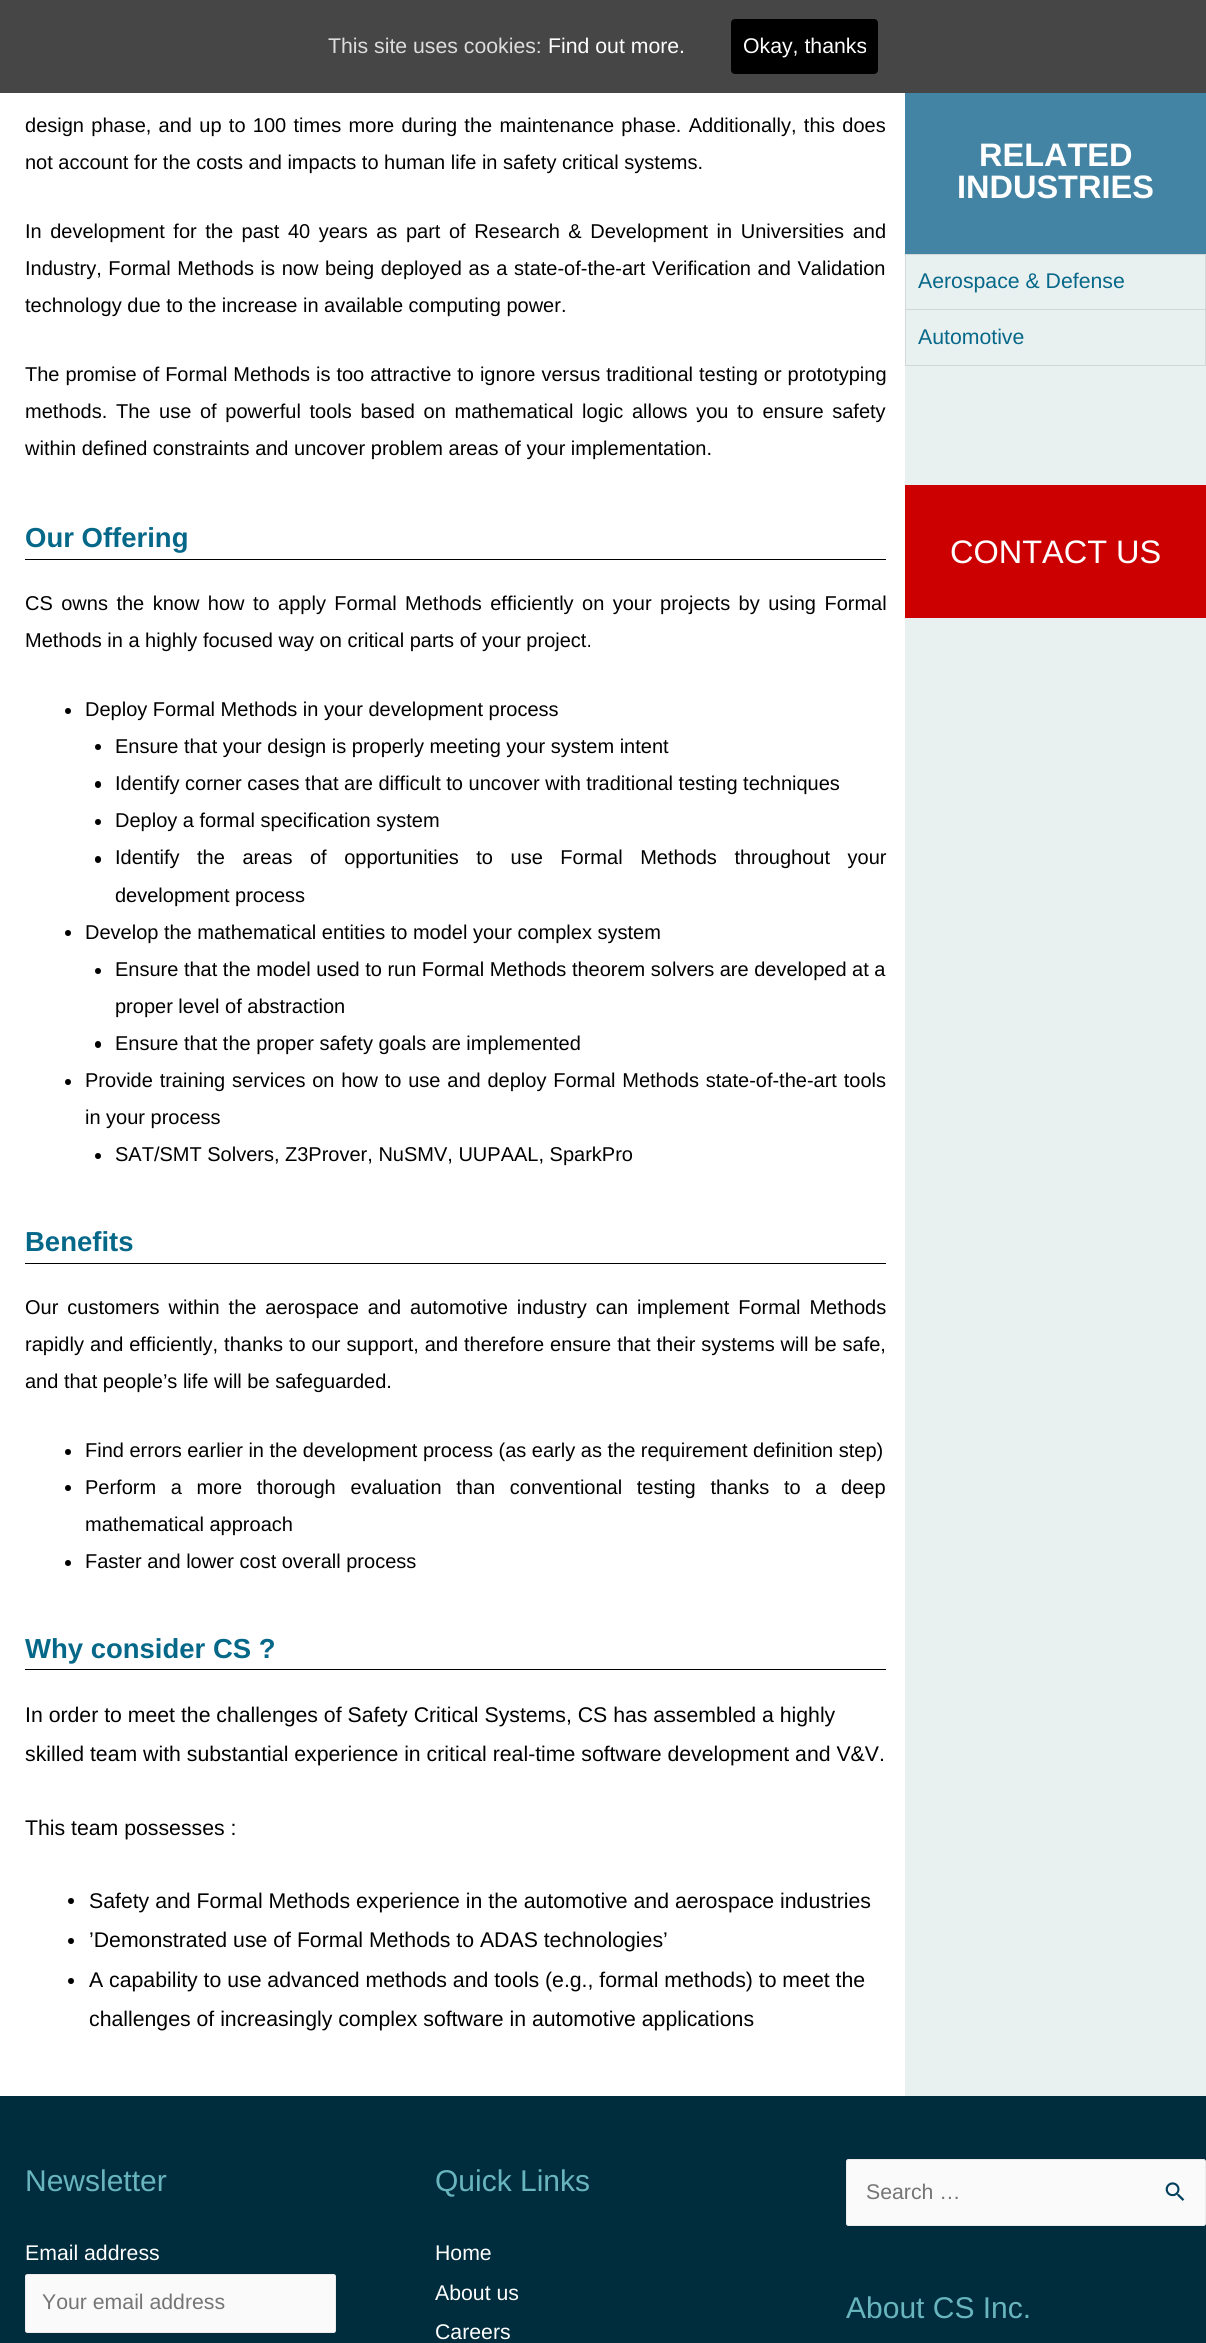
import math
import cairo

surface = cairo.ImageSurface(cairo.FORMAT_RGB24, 1206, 2343)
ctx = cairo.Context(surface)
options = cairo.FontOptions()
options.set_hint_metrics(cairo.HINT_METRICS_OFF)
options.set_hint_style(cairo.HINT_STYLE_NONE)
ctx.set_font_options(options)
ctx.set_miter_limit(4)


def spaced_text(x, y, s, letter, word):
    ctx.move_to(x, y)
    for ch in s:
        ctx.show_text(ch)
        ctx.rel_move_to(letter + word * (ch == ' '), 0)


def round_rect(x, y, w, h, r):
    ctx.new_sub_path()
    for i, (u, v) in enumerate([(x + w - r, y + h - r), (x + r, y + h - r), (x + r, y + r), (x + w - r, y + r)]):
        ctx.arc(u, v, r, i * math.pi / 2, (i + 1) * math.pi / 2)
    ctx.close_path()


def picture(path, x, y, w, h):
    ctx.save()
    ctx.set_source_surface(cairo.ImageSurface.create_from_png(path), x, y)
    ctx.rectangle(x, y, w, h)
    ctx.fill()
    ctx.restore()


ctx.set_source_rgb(1, 1, 1)
ctx.paint()
ctx.set_source_rgb(0.275, 0.275, 0.275)
ctx.rectangle(0, 0, 1206, 93)
ctx.fill()
ctx.select_font_face("Liberation Sans")
ctx.set_font_size(21.25)
ctx.set_source_rgb(0.867, 0.867, 0.867)
ctx.move_to(328, 53)
ctx.show_text("This site uses cookies:")
ctx.set_source_rgb(1, 1, 1)
ctx.move_to(548, 53)
ctx.show_text("Find out more.")
ctx.set_source_rgb(0, 0, 0)
round_rect(731, 19, 147, 55, 4)
ctx.fill()
ctx.set_source_rgb(1, 1, 1)
ctx.move_to(743, 53)
ctx.show_text("Okay, thanks")
ctx.set_font_size(20)
ctx.set_source_rgb(0, 0, 0)
spaced_text(25, 132, "design phase, and up to 100 times more during the maintenance phase. Additionally, this does", 0, 1.75)
ctx.move_to(25, 169)
ctx.show_text("not account for the costs and impacts to human life in safety critical systems.")
spaced_text(25, 238, "In development for the past 40 years as part of Research & Development in Universities and", 0, 3)
spaced_text(25, 275, "Industry, Formal Methods is now being deployed as a state-of-the-art Verification and Validation", 0, 1.1)
ctx.move_to(25, 312)
ctx.show_text("technology due to the increase in available computing power.")
spaced_text(25, 381, "The promise of Formal Methods is too attractive to ignore versus traditional testing or prototyping", 0, 0.4)
spaced_text(25, 418, "methods. The use of powerful tools based on mathematical logic allows you to ensure safety", 0, 3.1)
ctx.move_to(25, 455)
ctx.show_text("within defined constraints and uncover problem areas of your implementation.")
ctx.rectangle(25, 559, 861, 1)
ctx.fill()
ctx.select_font_face("Liberation Sans", cairo.FONT_SLANT_NORMAL, cairo.FONT_WEIGHT_BOLD)
ctx.set_font_size(27.5)
ctx.set_source_rgb(0.027, 0.408, 0.537)
ctx.move_to(25, 547)
ctx.show_text("Our Offering")
ctx.select_font_face("Liberation Sans")
ctx.set_font_size(20)
ctx.set_source_rgb(0, 0, 0)
spaced_text(25, 610, "CS owns the know how to apply Formal Methods efficiently on your projects by using Formal", 0, 2.9)
ctx.move_to(25, 647)
ctx.show_text("Methods in a highly focused way on critical parts of your project.")
ctx.new_path()
ctx.arc(68, 711, 3, 0, 2 * math.pi)
ctx.fill()
ctx.move_to(85, 716)
ctx.show_text("Deploy Formal Methods in your development process")
ctx.new_path()
ctx.arc(98, 747, 3, 0, 2 * math.pi)
ctx.fill()
ctx.move_to(115, 753)
ctx.show_text("Ensure that your design is properly meeting your system intent")
round_rect(95, 781, 6, 7, 3)
ctx.fill()
ctx.move_to(115, 790)
ctx.show_text("Identify corner cases that are difficult to uncover with traditional testing techniques")
ctx.new_path()
ctx.arc(98, 822, 3, 0, 2 * math.pi)
ctx.fill()
ctx.move_to(115, 827)
ctx.show_text("Deploy a formal specification system")
round_rect(95, 856, 6, 7, 3)
ctx.fill()
spaced_text(115, 864, "Identify the areas of opportunities to use Formal Methods throughout your", 0, 12)
ctx.move_to(115, 902)
ctx.show_text("development process")
ctx.new_path()
ctx.arc(68, 933, 3, 0, 2 * math.pi)
ctx.fill()
ctx.move_to(85, 939)
ctx.show_text("Develop the mathematical entities to model your complex system")
ctx.new_path()
ctx.arc(98, 971, 3, 0, 2 * math.pi)
ctx.fill()
ctx.move_to(115, 976)
ctx.show_text("Ensure that the model used to run Formal Methods theorem solvers are developed at a")
ctx.move_to(115, 1013)
ctx.show_text("proper level of abstraction")
round_rect(95, 1041, 6, 7, 3)
ctx.fill()
ctx.move_to(115, 1050)
ctx.show_text("Ensure that the proper safety goals are implemented")
ctx.new_path()
ctx.arc(68, 1082, 3, 0, 2 * math.pi)
ctx.fill()
spaced_text(85, 1087, "Provide training services on how to use and deploy Formal Methods state-of-the-art tools", 0, 1.25)
ctx.move_to(85, 1124)
ctx.show_text("in your process")
ctx.new_path()
ctx.arc(98, 1156, 3, 0, 2 * math.pi)
ctx.fill()
ctx.move_to(115, 1161)
ctx.show_text("SAT/SMT Solvers, Z3Prover, NuSMV, UUPAAL, SparkPro")
ctx.rectangle(25, 1263, 861, 1)
ctx.fill()
ctx.select_font_face("Liberation Sans", cairo.FONT_SLANT_NORMAL, cairo.FONT_WEIGHT_BOLD)
ctx.set_font_size(27.5)
ctx.set_source_rgb(0.027, 0.408, 0.537)
ctx.move_to(25, 1251)
ctx.show_text("Benefits")
ctx.select_font_face("Liberation Sans")
ctx.set_font_size(20)
ctx.set_source_rgb(0, 0, 0)
spaced_text(25, 1314, "Our customers within the aerospace and automotive industry can implement Formal Methods", 0, 3.4)
spaced_text(25, 1351, "rapidly and efficiently, thanks to our support, and therefore ensure that their systems will be safe,", 0, 0.4)
ctx.move_to(25, 1388)
ctx.show_text("and that people’s life will be safeguarded.")
ctx.new_path()
ctx.arc(68, 1452, 3, 0, 2 * math.pi)
ctx.fill()
ctx.move_to(85, 1457)
ctx.show_text("Find errors earlier in the development process (as early as the requirement definition step)")
ctx.new_path()
ctx.arc(68, 1488, 3, 0, 2 * math.pi)
ctx.fill()
spaced_text(85, 1494, "Perform a more thorough evaluation than conventional testing thanks to a deep", 0, 9.1)
ctx.move_to(85, 1531)
ctx.show_text("mathematical approach")
ctx.new_path()
ctx.arc(68, 1563, 3, 0, 2 * math.pi)
ctx.fill()
ctx.move_to(85, 1568)
ctx.show_text("Faster and lower cost overall process")
ctx.rectangle(25, 1669, 861, 1)
ctx.fill()
ctx.select_font_face("Liberation Sans", cairo.FONT_SLANT_NORMAL, cairo.FONT_WEIGHT_BOLD)
ctx.set_font_size(27.5)
ctx.set_source_rgb(0.027, 0.408, 0.537)
ctx.move_to(25, 1658)
ctx.show_text("Why consider CS ?")
ctx.select_font_face("Liberation Sans")
ctx.set_font_size(21.25)
ctx.set_source_rgb(0, 0, 0)
ctx.move_to(25, 1722)
ctx.show_text("In order to meet the challenges of Safety Critical Systems, CS has assembled a highly")
ctx.move_to(25, 1761)
ctx.show_text("skilled team with substantial experience in critical real-time software development and V&V.")
ctx.move_to(25, 1835)
ctx.show_text("This team possesses :")
ctx.new_path()
ctx.arc(71, 1901, 3, 0, 2 * math.pi)
ctx.fill()
ctx.move_to(89, 1908)
ctx.show_text("Safety and Formal Methods experience in the automotive and aerospace industries")
ctx.new_path()
ctx.arc(71, 1941, 3, 0, 2 * math.pi)
ctx.fill()
ctx.move_to(89, 1947)
ctx.show_text("’Demonstrated use of Formal Methods to ADAS technologies’")
ctx.new_path()
ctx.arc(71, 1981, 3, 0, 2 * math.pi)
ctx.fill()
ctx.move_to(89, 1987)
ctx.show_text("A capability to use advanced methods and tools (e.g., formal methods) to meet the")
ctx.move_to(89, 2026)
ctx.show_text("challenges of increasingly complex software in automotive applications")
ctx.set_source_rgb(0.263, 0.518, 0.647)
ctx.rectangle(905, 93, 301, 161)
ctx.fill()
ctx.select_font_face("Liberation Sans", cairo.FONT_SLANT_NORMAL, cairo.FONT_WEIGHT_BOLD)
ctx.set_font_size(32.5)
ctx.set_source_rgb(1, 1, 1)
ctx.move_to(979, 166)
ctx.show_text("RELATED")
ctx.move_to(957, 198)
ctx.show_text("INDUSTRIES")
ctx.set_source_rgb(0.914, 0.941, 0.941)
ctx.rectangle(905, 254, 301, 1842)
ctx.fill()
ctx.set_source_rgb(0.824, 0.847, 0.847)
ctx.new_path()
ctx.move_to(905, 254)
ctx.line_to(1206, 254)
ctx.line_to(1206, 255)
ctx.line_to(906, 255)
ctx.close_path()
ctx.fill()
ctx.set_source_rgba(0, 0, 0, 0.1)
ctx.new_path()
ctx.move_to(905, 366)
ctx.line_to(905, 254)
ctx.line_to(906, 255)
ctx.line_to(906, 366)
ctx.close_path()
ctx.fill()
ctx.set_source_rgb(0.824, 0.847, 0.847)
ctx.new_path()
ctx.move_to(1206, 255)
ctx.line_to(1206, 310)
ctx.line_to(1205, 309)
ctx.line_to(1205, 255)
ctx.close_path()
ctx.fill()
ctx.set_source_rgba(0, 0, 0, 0.1)
ctx.new_path()
ctx.move_to(1206, 310)
ctx.line_to(906, 310)
ctx.line_to(906, 309)
ctx.line_to(1205, 309)
ctx.close_path()
ctx.fill()
ctx.select_font_face("Liberation Sans")
ctx.set_font_size(21.25)
ctx.set_source_rgb(0.027, 0.408, 0.537)
ctx.move_to(918, 288)
ctx.show_text("Aerospace & Defense")
ctx.set_source_rgb(0.824, 0.847, 0.847)
ctx.new_path()
ctx.move_to(1206, 310)
ctx.line_to(1206, 366)
ctx.line_to(1205, 365)
ctx.line_to(1205, 310)
ctx.close_path()
ctx.fill()
ctx.set_source_rgba(0, 0, 0, 0.1)
ctx.new_path()
ctx.move_to(1206, 366)
ctx.line_to(906, 366)
ctx.line_to(906, 365)
ctx.line_to(1205, 365)
ctx.close_path()
ctx.fill()
ctx.set_source_rgb(0.027, 0.408, 0.537)
ctx.move_to(918, 344)
ctx.show_text("Automotive")
ctx.set_source_rgb(0.8, 0, 0.004)
ctx.rectangle(905, 485, 301, 133)
ctx.fill()
ctx.set_font_size(32.5)
ctx.set_source_rgb(1, 1, 1)
ctx.move_to(950, 563)
ctx.show_text("CONTACT US")
ctx.set_source_rgb(0, 0.176, 0.239)
ctx.rectangle(0, 2096, 1206, 247)
ctx.fill()
ctx.set_font_size(30)
ctx.set_source_rgb(0.408, 0.71, 0.741)
ctx.move_to(25, 2191)
ctx.show_text("Newsletter")
ctx.set_font_size(21.25)
ctx.set_source_rgb(1, 1, 1)
ctx.move_to(25, 2260)
ctx.show_text("Email address")
ctx.set_source_rgb(0.98, 0.98, 0.98)
round_rect(25.5, 2274.5, 310, 58, 2)
ctx.fill_preserve()
ctx.set_source_rgb(0.918, 0.918, 0.918)
ctx.set_line_width(1)
ctx.stroke()
ctx.set_source_rgb(0.459, 0.459, 0.459)
ctx.move_to(42, 2309)
ctx.show_text("Your email address")
ctx.set_font_size(30)
ctx.set_source_rgb(0.408, 0.71, 0.741)
ctx.move_to(435, 2191)
ctx.show_text("Quick Links")
ctx.set_font_size(21.25)
ctx.set_source_rgb(1, 1, 1)
ctx.move_to(435, 2260)
ctx.show_text("Home")
ctx.move_to(435, 2300)
ctx.show_text("About us")
ctx.move_to(435, 2339)
ctx.show_text("Careers")
ctx.set_source_rgb(0.98, 0.98, 0.98)
round_rect(846.5, 2159.5, 359, 66, 2)
ctx.fill_preserve()
ctx.set_source_rgb(0.918, 0.918, 0.918)
ctx.stroke()
ctx.set_source_rgb(0.459, 0.459, 0.459)
ctx.move_to(866, 2199)
ctx.show_text("Search …")
picture("img1.png", 1165, 2182, 20, 19)
ctx.set_font_size(30)
ctx.set_source_rgb(0.408, 0.71, 0.741)
ctx.move_to(846, 2318)
ctx.show_text("About CS Inc.")
surface.write_to_png("page.png")
